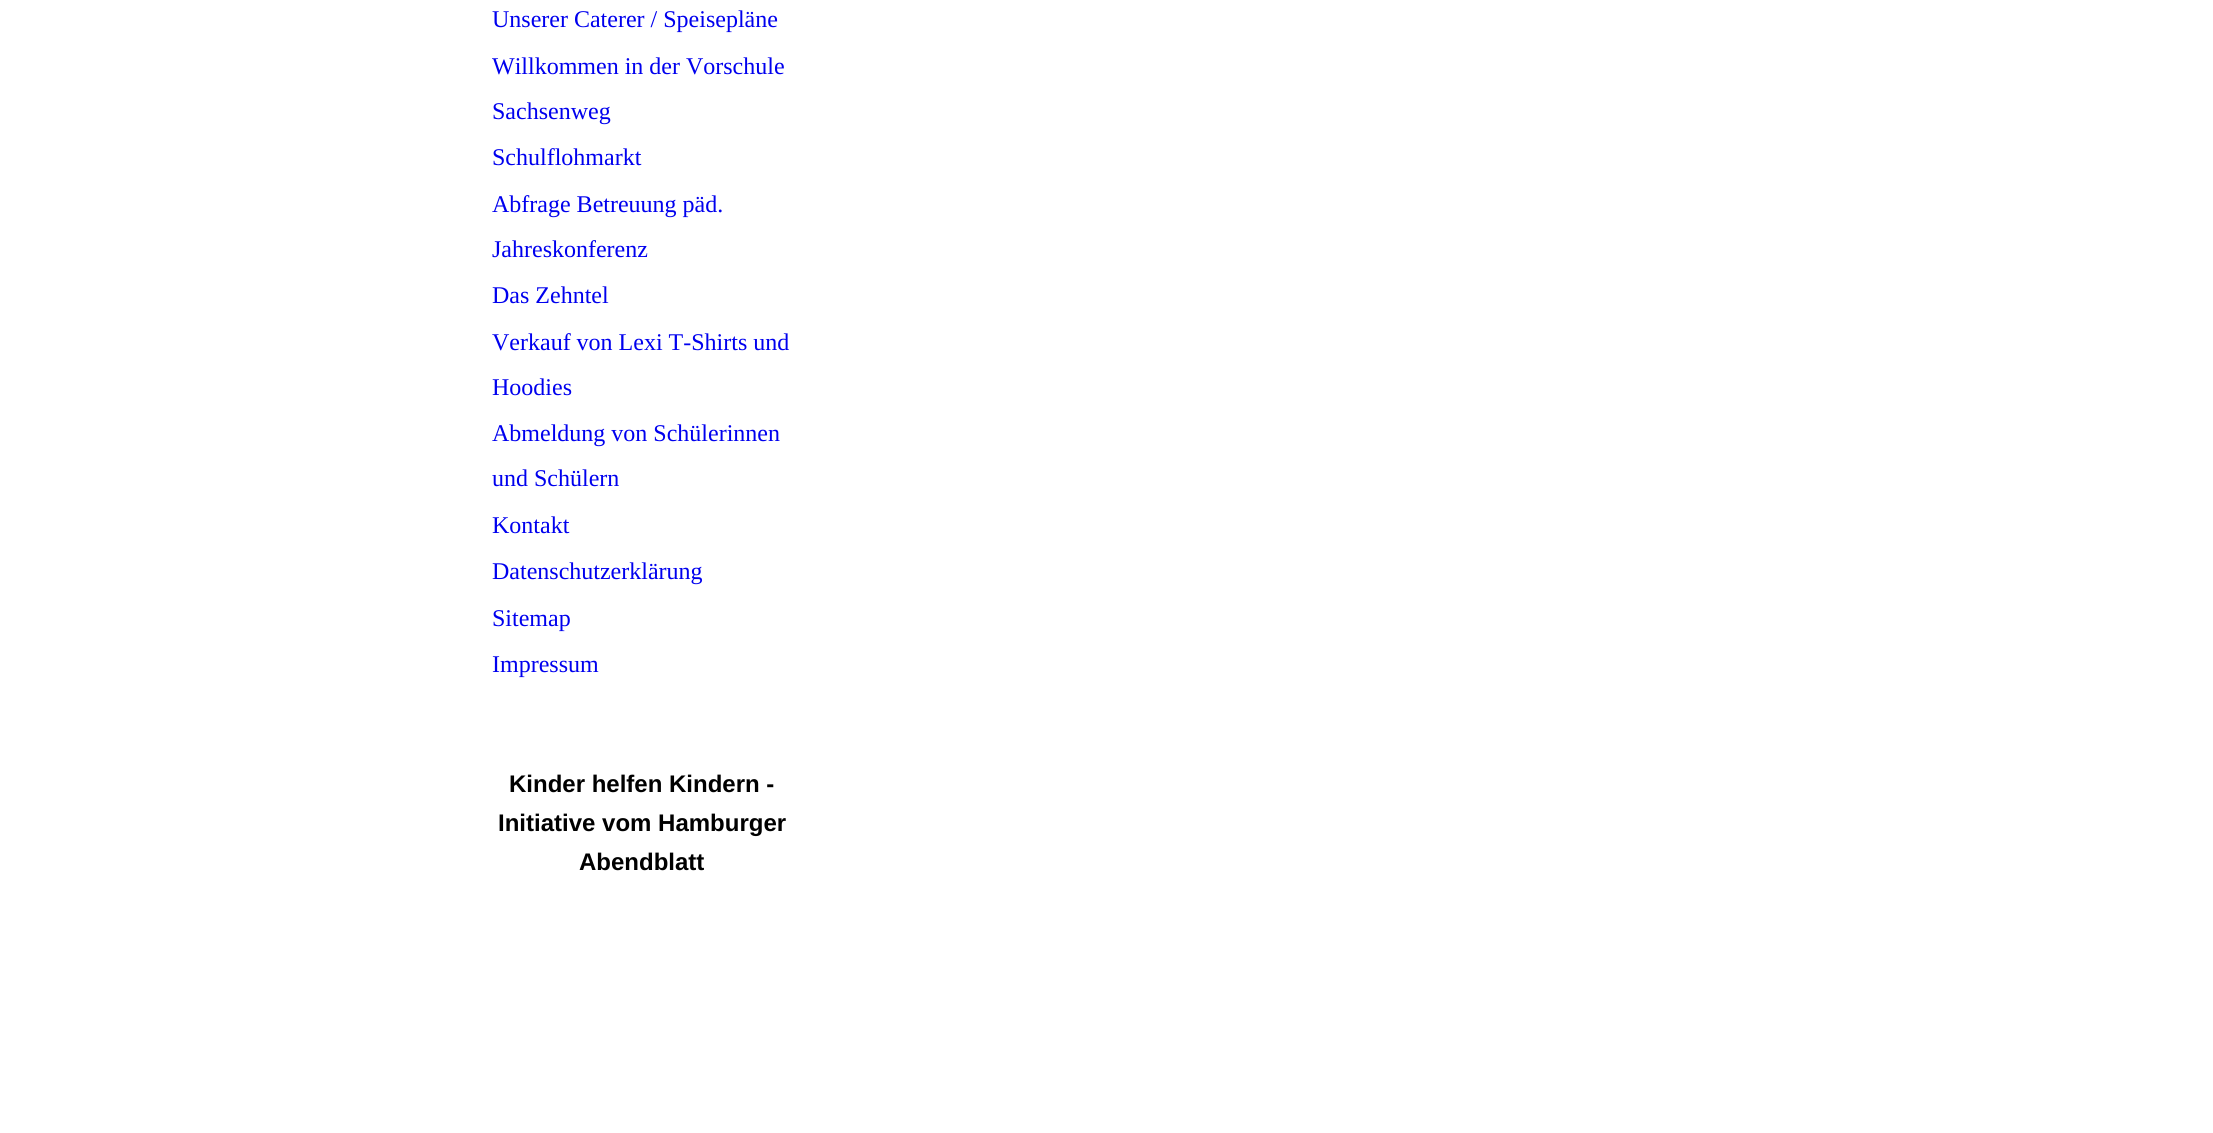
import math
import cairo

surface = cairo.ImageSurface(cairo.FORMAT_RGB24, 2213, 1133)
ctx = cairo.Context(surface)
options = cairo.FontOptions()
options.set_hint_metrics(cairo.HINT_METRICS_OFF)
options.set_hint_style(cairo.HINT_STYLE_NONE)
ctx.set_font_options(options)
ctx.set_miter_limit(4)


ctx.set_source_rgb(1, 1, 1)
ctx.paint()
ctx.select_font_face("Liberation Serif")
ctx.set_font_size(24)
ctx.set_source_rgb(0, 0, 0.933)
ctx.move_to(492, 27)
ctx.show_text("Unserer Caterer / Speisepläne")
ctx.move_to(492, 74)
ctx.show_text("Willkommen in der Vorschule")
ctx.move_to(492, 119)
ctx.show_text("Sachsenweg")
ctx.move_to(492, 165)
ctx.show_text("Schulflohmarkt")
ctx.move_to(492, 212)
ctx.show_text("Abfrage Betreuung päd.")
ctx.move_to(492, 257)
ctx.show_text("Jahreskonferenz")
ctx.move_to(492, 303)
ctx.show_text("Das Zehntel")
ctx.move_to(492, 350)
ctx.show_text("Verkauf von Lexi T-Shirts und")
ctx.move_to(492, 395)
ctx.show_text("Hoodies")
ctx.move_to(492, 441)
ctx.show_text("Abmeldung von Schülerinnen")
ctx.move_to(492, 486)
ctx.show_text("und Schülern")
ctx.move_to(492, 533)
ctx.show_text("Kontakt")
ctx.move_to(492, 579)
ctx.show_text("Datenschutzerklärung")
ctx.move_to(492, 626)
ctx.show_text("Sitemap")
ctx.move_to(492, 672)
ctx.show_text("Impressum")
ctx.select_font_face("Liberation Sans", cairo.FONT_SLANT_NORMAL, cairo.FONT_WEIGHT_BOLD)
ctx.set_source_rgb(0, 0, 0)
ctx.move_to(509, 792)
ctx.show_text("Kinder helfen Kindern -")
ctx.move_to(498, 831)
ctx.show_text("Initiative vom Hamburger")
ctx.move_to(579, 870)
ctx.show_text("Abendblatt")
surface.write_to_png("page.png")
